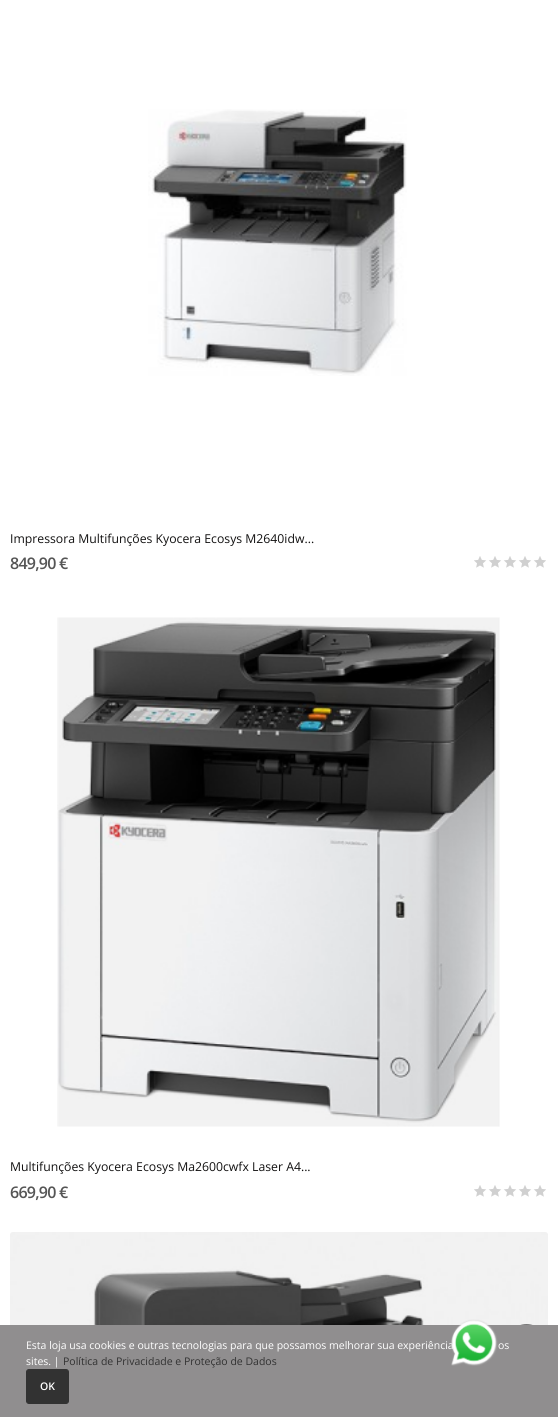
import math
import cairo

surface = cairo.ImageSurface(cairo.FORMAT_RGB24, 558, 1417)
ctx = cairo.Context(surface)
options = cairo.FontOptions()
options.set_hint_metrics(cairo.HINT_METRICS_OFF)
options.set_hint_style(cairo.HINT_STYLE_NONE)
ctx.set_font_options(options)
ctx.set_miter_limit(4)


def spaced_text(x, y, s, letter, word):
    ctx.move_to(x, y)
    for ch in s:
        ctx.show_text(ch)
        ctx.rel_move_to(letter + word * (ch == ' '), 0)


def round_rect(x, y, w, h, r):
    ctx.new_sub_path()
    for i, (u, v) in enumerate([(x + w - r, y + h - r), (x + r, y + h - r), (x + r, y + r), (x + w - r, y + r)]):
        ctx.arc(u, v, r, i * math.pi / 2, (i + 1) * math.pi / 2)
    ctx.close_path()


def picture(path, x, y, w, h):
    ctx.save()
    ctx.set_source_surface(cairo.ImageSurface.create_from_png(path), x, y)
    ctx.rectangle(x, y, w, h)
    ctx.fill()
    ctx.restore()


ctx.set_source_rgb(1, 1, 1)
ctx.paint()
picture("img1.png", 148, 109, 259, 267)
ctx.select_font_face("Open Sans")
ctx.set_font_size(12.25)
ctx.set_source_rgb(0.071, 0.067, 0.067)
ctx.move_to(10, 543)
ctx.show_text("Impressora Multifunções Kyocera Ecosys M2640idw...")
ctx.select_font_face("Open Sans SemiBold")
ctx.set_font_size(16)
ctx.set_source_rgb(0.333, 0.333, 0.333)
spaced_text(10, 569, "849,90 €", -0.75, 0)
picture("img2.png", 474, 556, 72, 12)
picture("img3.png", 57, 617, 443, 510)
ctx.select_font_face("Open Sans")
ctx.set_font_size(12.25)
ctx.set_source_rgb(0.071, 0.067, 0.067)
ctx.move_to(10, 1171)
ctx.show_text("Multifunções Kyocera Ecosys Ma2600cwfx Laser A4...")
ctx.select_font_face("Open Sans SemiBold")
ctx.set_font_size(16)
ctx.set_source_rgb(0.333, 0.333, 0.333)
spaced_text(10, 1198, "669,90 €", -0.75, 0)
picture("img2.png", 474, 1185, 72, 12)
picture("img4.png", 10, 1232, 538, 93)
ctx.set_source_rgb(0.475, 0.475, 0.475)
ctx.arc(526.5, 1343.5, 19.5, 0, 2 * math.pi)
ctx.fill()
ctx.set_source_rgb(0.565, 0.557, 0.561)
ctx.rectangle(0, 1325, 558, 92)
ctx.fill()
ctx.select_font_face("Open Sans")
ctx.set_font_size(10.5)
ctx.set_source_rgb(1, 1, 1)
ctx.move_to(26, 1349)
ctx.show_text("Esta loja usa cookies e outras tecnologias para que possamos melhorar sua experiência")
picture("img5.png", 451, 1319, 47, 47)
ctx.move_to(498, 1349)
ctx.show_text("os")
ctx.move_to(26, 1365)
ctx.show_text("sites. |")
ctx.set_source_rgb(0.196, 0.196, 0.196)
ctx.move_to(63, 1365)
ctx.show_text("Política de Privacidade e Proteção de Dados")
round_rect(26.5, 1369.5, 42, 34, 2.5)
ctx.fill_preserve()
ctx.set_line_width(1)
ctx.stroke()
ctx.select_font_face("Open Sans SemiBold")
ctx.set_source_rgb(1, 1, 1)
ctx.move_to(40, 1390)
ctx.show_text("OK")
surface.write_to_png("page.png")
